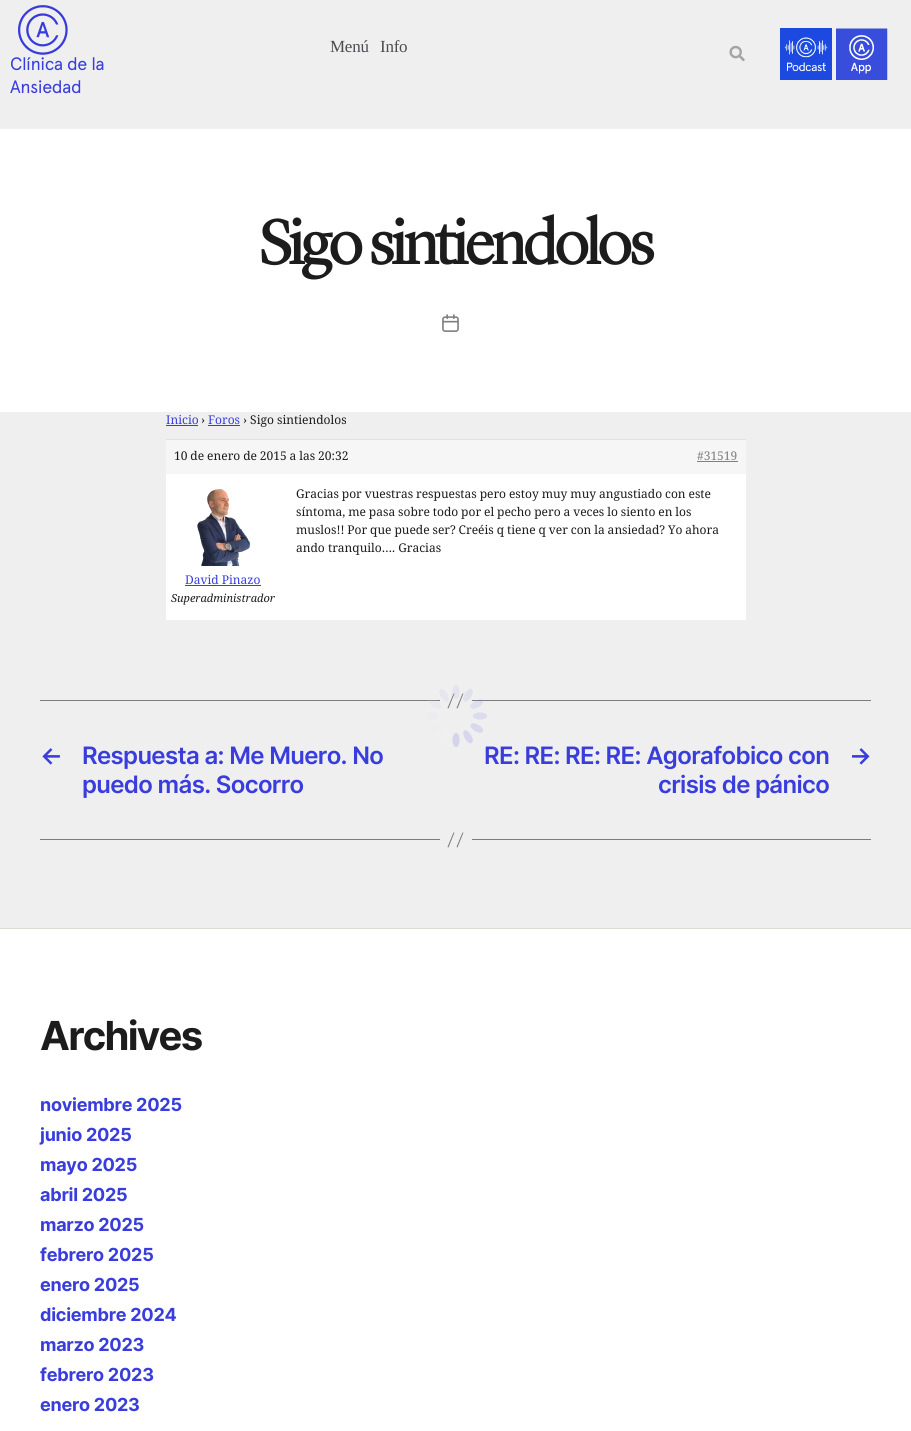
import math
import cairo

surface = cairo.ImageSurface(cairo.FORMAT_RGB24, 911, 1431)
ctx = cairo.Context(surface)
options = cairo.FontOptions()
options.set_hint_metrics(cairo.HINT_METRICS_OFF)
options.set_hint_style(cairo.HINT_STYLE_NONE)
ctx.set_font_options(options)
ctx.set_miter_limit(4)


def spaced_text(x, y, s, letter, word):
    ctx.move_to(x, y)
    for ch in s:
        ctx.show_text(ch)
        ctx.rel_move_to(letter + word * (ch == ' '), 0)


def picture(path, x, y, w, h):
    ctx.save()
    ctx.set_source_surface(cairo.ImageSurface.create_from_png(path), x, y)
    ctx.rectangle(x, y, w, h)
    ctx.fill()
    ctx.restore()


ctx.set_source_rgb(0.937, 0.937, 0.937)
ctx.paint()
ctx.select_font_face("Liberation Serif")
ctx.set_font_size(17)
ctx.set_source_rgb(0.286, 0.302, 0.322)
spaced_text(330, 52, "Menú", -0.25, 0)
spaced_text(380, 52, "Info", -0.25, 0)
picture("img1.png", 729, 45, 16, 17)
picture("img2.png", 780, 28, 52, 52)
picture("img3.png", 836, 28, 52, 52)
picture("img4.png", 18, 5, 50, 50)
ctx.select_font_face("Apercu")
ctx.set_font_size(18)
ctx.set_source_rgb(0.224, 0.239, 0.863)
spaced_text(10, 70, "Clínica de la", -0.5, 0)
spaced_text(10, 93, "Ansiedad", -0.5, 0)
ctx.set_source_rgb(1, 1, 1)
ctx.rectangle(0, 129, 911, 283)
ctx.fill()
ctx.select_font_face("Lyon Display", cairo.FONT_SLANT_NORMAL, cairo.FONT_WEIGHT_BOLD)
ctx.set_font_size(64)
ctx.set_source_rgb(0.11, 0.11, 0.11)
spaced_text(259, 264, "Sigo sintiendolos", -2.7, 0)
picture("img5.png", 442, 314, 17, 18)
ctx.select_font_face("Noto Serif")
ctx.set_font_size(12)
ctx.set_source_rgb(0.224, 0.239, 0.863)
ctx.move_to(166, 424)
ctx.show_text("Inicio")
ctx.rectangle(166, 425, 32, 1)
ctx.fill()
ctx.set_source_rgb(0.11, 0.11, 0.11)
ctx.move_to(201, 424)
ctx.show_text("›")
ctx.set_source_rgb(0.224, 0.239, 0.863)
ctx.move_to(208, 424)
ctx.show_text("Foros")
ctx.rectangle(208, 425, 32, 1)
ctx.fill()
ctx.set_source_rgb(0.11, 0.11, 0.11)
ctx.move_to(243, 424)
ctx.show_text("› Sigo sintiendolos")
ctx.set_source_rgb(0.961, 0.961, 0.961)
ctx.rectangle(166, 440, 580, 34)
ctx.fill()
ctx.set_source_rgb(0.882, 0.882, 0.882)
ctx.rectangle(166, 439, 580, 1)
ctx.fill()
ctx.set_source_rgb(0.11, 0.11, 0.11)
spaced_text(174, 460, "10 de enero de 2015 a las 20:32", 0, -0.2)
ctx.set_source_rgb(0.502, 0.502, 0.502)
ctx.move_to(697, 460)
ctx.show_text("#31519")
ctx.rectangle(697, 461, 41, 1)
ctx.fill()
ctx.set_source_rgb(1, 1, 1)
ctx.rectangle(166, 474, 580, 146)
ctx.fill()
ctx.set_source_rgb(0.11, 0.11, 0.11)
spaced_text(296, 498, "Gracias por vuestras respuestas pero estoy muy muy angustiado con este", 0, -0.2)
spaced_text(296, 516, "síntoma, me pasa sobre todo por el pecho pero a veces lo siento en los", 0, -0.2)
spaced_text(296, 534, "muslos!! Por que puede ser? Creéis q tiene q ver con la ansiedad? Yo ahora", 0, -0.2)
ctx.move_to(296, 552)
ctx.show_text("ando tranquilo…. Gracias")
picture("img6.png", 197, 489, 54, 77)
ctx.set_source_rgb(0.224, 0.239, 0.863)
ctx.move_to(185, 584)
ctx.show_text("David Pinazo")
ctx.rectangle(185, 585, 76, 1)
ctx.fill()
ctx.select_font_face("Noto Serif", cairo.FONT_SLANT_ITALIC)
ctx.set_font_size(11)
ctx.set_source_rgb(0.11, 0.11, 0.11)
ctx.move_to(171, 602)
ctx.show_text("Superadministrador")
ctx.set_source_rgb(0.49, 0.49, 0.49)
ctx.rectangle(472, 700, 399, 1)
ctx.fill()
ctx.rectangle(40, 700, 400, 1)
ctx.fill()
ctx.new_path()
ctx.move_to(453.5, 693.5)
ctx.line_to(454.5, 693.5)
ctx.line_to(448.5, 708.5)
ctx.line_to(447.5, 708)
ctx.close_path()
ctx.move_to(462.5, 693.5)
ctx.line_to(463.5, 693.5)
ctx.line_to(457.5, 708.5)
ctx.line_to(456.5, 708)
ctx.close_path()
ctx.fill()
ctx.select_font_face("Inter SemiBold")
ctx.set_font_size(24)
ctx.set_source_rgb(0.224, 0.239, 0.863)
spaced_text(40, 764, "←", -0.65, 0)
spaced_text(82, 764, "Respuesta a: Me Muero. No", -0.65, 0)
spaced_text(82, 793, "puedo más. Socorro", -0.65, 0)
spaced_text(484, 764, "RE: RE: RE: RE: Agorafobico con", -0.65, 0)
spaced_text(658, 793, "crisis de pánico", -0.65, 0)
spaced_text(849, 764, "→", -0.65, 0)
ctx.set_source_rgb(0.49, 0.49, 0.49)
ctx.rectangle(472, 839, 399, 1)
ctx.fill()
ctx.rectangle(40, 839, 400, 1)
ctx.fill()
ctx.new_path()
ctx.move_to(453.5, 832.5)
ctx.line_to(454.5, 832.5)
ctx.line_to(448.5, 847.5)
ctx.line_to(447.5, 847)
ctx.close_path()
ctx.move_to(462.5, 832.5)
ctx.line_to(463.5, 832.5)
ctx.line_to(457.5, 847.5)
ctx.line_to(456.5, 847)
ctx.close_path()
ctx.fill()
ctx.set_source_rgb(1, 1, 1)
ctx.rectangle(0, 929, 911, 502)
ctx.fill()
ctx.set_source_rgb(0.878, 0.859, 0.816)
ctx.rectangle(0, 928, 911, 1)
ctx.fill()
ctx.select_font_face("Inter", cairo.FONT_SLANT_NORMAL, cairo.FONT_WEIGHT_BOLD)
ctx.set_font_size(40)
ctx.set_source_rgb(0.11, 0.11, 0.11)
spaced_text(40, 1050, "Archives", -1.75, 0)
ctx.set_font_size(18)
ctx.set_source_rgb(0.224, 0.239, 0.863)
spaced_text(40, 1111, "noviembre 2025", -0.25, 0)
spaced_text(40, 1141, "junio 2025", -0.25, 0)
spaced_text(40, 1171, "mayo 2025", -0.25, 0)
spaced_text(40, 1201, "abril 2025", -0.25, 0)
spaced_text(40, 1231, "marzo 2025", -0.25, 0)
spaced_text(40, 1261, "febrero 2025", -0.25, 0)
spaced_text(40, 1291, "enero 2025", -0.25, 0)
spaced_text(40, 1321, "diciembre 2024", -0.25, 0)
spaced_text(40, 1351, "marzo 2023", -0.25, 0)
spaced_text(40, 1381, "febrero 2023", -0.25, 0)
spaced_text(40, 1411, "enero 2023", -0.25, 0)
picture("img7.png", 428, 685, 59, 62)
surface.write_to_png("page.png")
